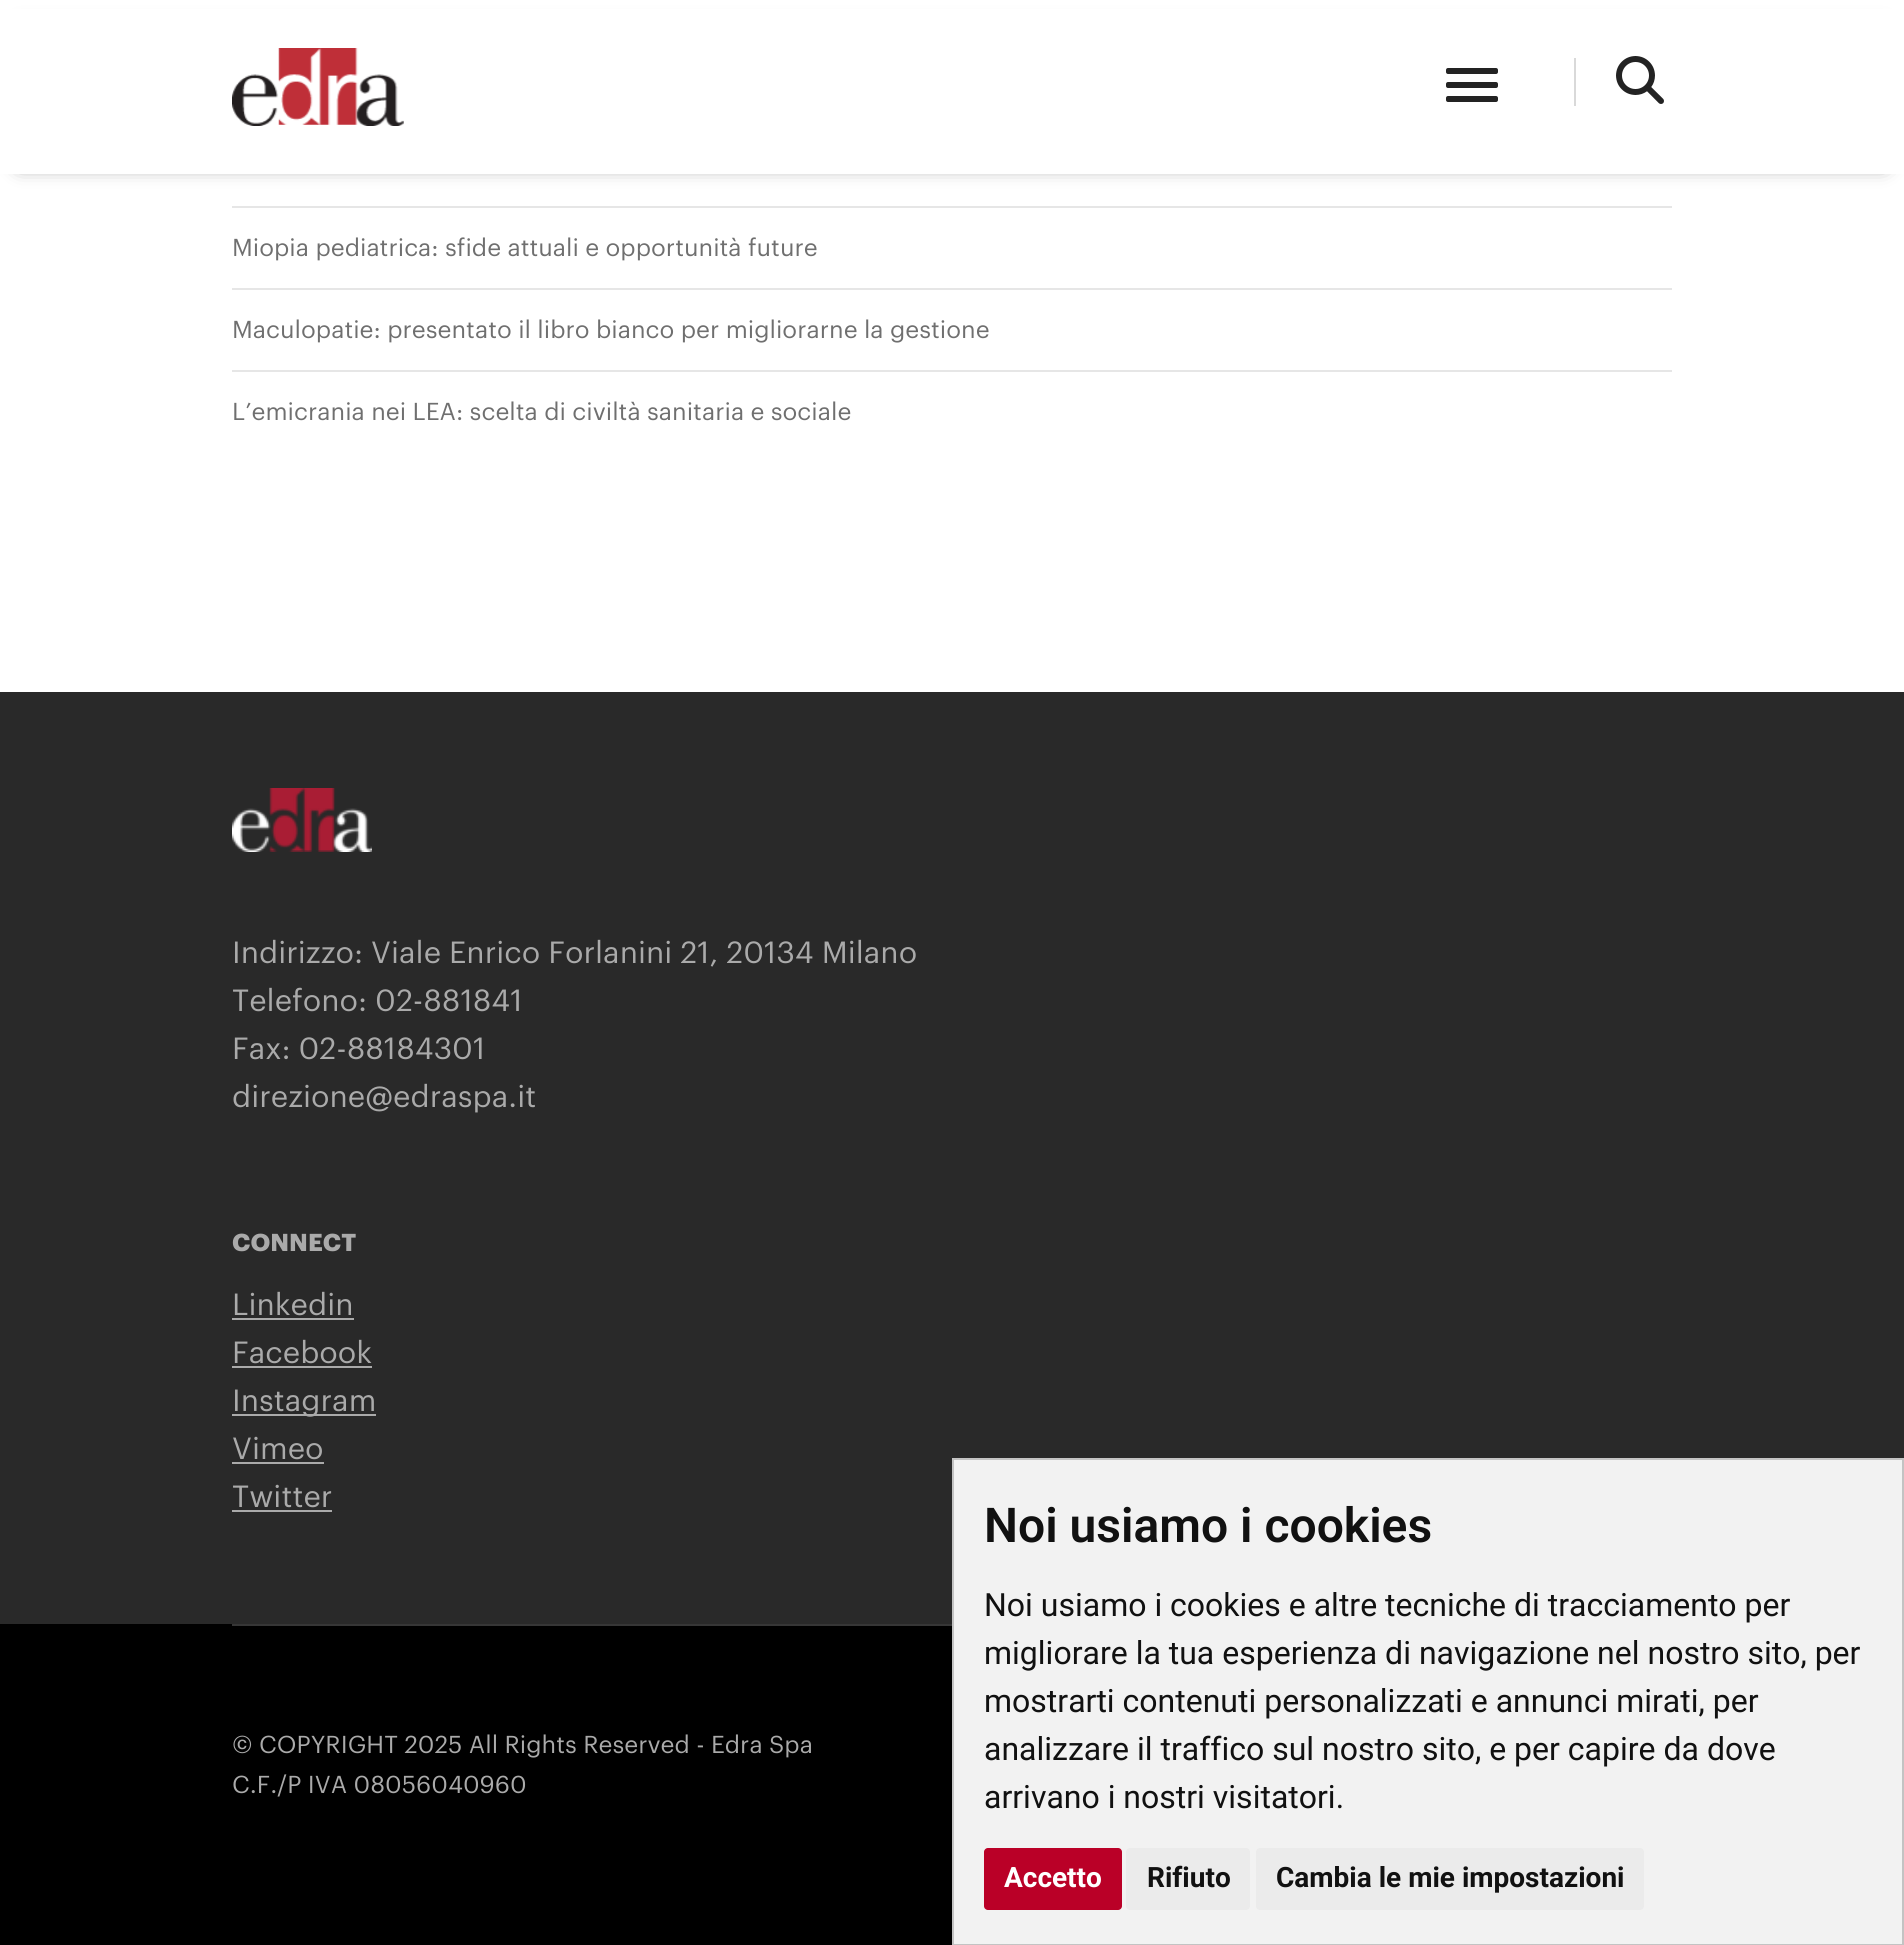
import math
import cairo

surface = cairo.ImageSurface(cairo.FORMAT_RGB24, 1904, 1945)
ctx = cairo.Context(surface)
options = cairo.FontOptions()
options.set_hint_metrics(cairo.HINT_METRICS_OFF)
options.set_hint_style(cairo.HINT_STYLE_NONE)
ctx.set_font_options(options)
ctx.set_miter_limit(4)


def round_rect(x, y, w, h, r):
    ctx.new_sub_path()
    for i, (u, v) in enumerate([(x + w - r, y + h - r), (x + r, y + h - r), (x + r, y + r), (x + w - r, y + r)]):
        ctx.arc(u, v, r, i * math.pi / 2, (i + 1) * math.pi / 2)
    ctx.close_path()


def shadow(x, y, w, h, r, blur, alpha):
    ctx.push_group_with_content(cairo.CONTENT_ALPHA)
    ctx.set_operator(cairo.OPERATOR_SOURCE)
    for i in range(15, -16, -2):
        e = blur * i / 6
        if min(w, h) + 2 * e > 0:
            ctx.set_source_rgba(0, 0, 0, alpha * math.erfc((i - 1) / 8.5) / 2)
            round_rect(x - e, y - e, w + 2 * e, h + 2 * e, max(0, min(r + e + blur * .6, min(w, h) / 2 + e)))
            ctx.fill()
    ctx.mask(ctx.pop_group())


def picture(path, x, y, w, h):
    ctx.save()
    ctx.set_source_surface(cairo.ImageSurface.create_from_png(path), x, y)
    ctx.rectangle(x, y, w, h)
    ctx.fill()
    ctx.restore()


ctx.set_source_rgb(1, 1, 1)
ctx.paint()
ctx.set_source_rgb(0, 0, 0)
shadow(20, 30, 1864, 134, 0, 10, 0.6)
ctx.set_source_rgb(1, 1, 1)
ctx.rectangle(0, 9, 1904, 165)
ctx.fill()
picture("img1.png", 232, 48, 172, 78)
ctx.set_source_rgb(0.137, 0.137, 0.137)
round_rect(1446, 68, 52, 6, 2)
ctx.fill()
round_rect(1446, 82, 52, 6, 2)
ctx.fill()
round_rect(1446, 96, 52, 6, 2)
ctx.fill()
ctx.set_source_rgb(0.851, 0.851, 0.851)
ctx.rectangle(1574, 58, 2, 48)
ctx.fill()
picture("img2.png", 1616, 56, 48, 48)
ctx.set_source_rgb(0.902, 0.902, 0.902)
ctx.rectangle(232, 206, 1440, 2)
ctx.fill()
ctx.rectangle(232, 288, 1440, 2)
ctx.fill()
ctx.select_font_face("Graphik")
ctx.set_font_size(24)
ctx.set_source_rgb(0.435, 0.435, 0.435)
ctx.move_to(232, 256)
ctx.show_text("Miopia pediatrica: sfide attuali e opportunità future")
ctx.set_source_rgb(0.902, 0.902, 0.902)
ctx.rectangle(232, 370, 1440, 2)
ctx.fill()
ctx.set_source_rgb(0.435, 0.435, 0.435)
ctx.move_to(232, 338)
ctx.show_text("Maculopatie: presentato il libro bianco per migliorarne la gestione")
ctx.move_to(232, 420)
ctx.show_text("L’emicrania nei LEA: scelta di civiltà sanitaria e sociale")
ctx.set_source_rgb(0.161, 0.161, 0.161)
ctx.rectangle(0, 692, 1904, 932)
ctx.fill()
picture("img3.png", 232, 788, 140, 64)
ctx.set_font_size(30)
ctx.set_source_rgb(0.667, 0.667, 0.667)
ctx.move_to(232, 963)
ctx.show_text("Indirizzo: Viale Enrico Forlanini 21, 20134 Milano")
ctx.move_to(232, 1011)
ctx.show_text("Telefono: 02-881841")
ctx.move_to(232, 1059)
ctx.show_text("Fax: 02-88184301")
ctx.move_to(232, 1107)
ctx.show_text("direzione@edraspa.it")
ctx.select_font_face("Graphik", cairo.FONT_SLANT_NORMAL, cairo.FONT_WEIGHT_BOLD)
ctx.set_font_size(24)
ctx.move_to(232, 1251)
ctx.show_text("CONNECT")
ctx.select_font_face("Graphik")
ctx.set_font_size(30)
ctx.move_to(232, 1315)
ctx.show_text("Linkedin")
ctx.rectangle(232, 1318, 122, 2)
ctx.fill()
ctx.move_to(232, 1363)
ctx.show_text("Facebook")
ctx.rectangle(232, 1366, 140, 2)
ctx.fill()
ctx.rectangle(232, 1414, 144, 2)
ctx.fill()
ctx.move_to(232, 1411)
ctx.show_text("Instagram")
ctx.move_to(232, 1459)
ctx.show_text("Vimeo")
ctx.rectangle(232, 1462, 92, 2)
ctx.fill()
ctx.move_to(232, 1507)
ctx.show_text("Twitter")
ctx.rectangle(232, 1510, 100, 2)
ctx.fill()
ctx.set_source_rgb(0, 0, 0)
ctx.rectangle(0, 1624, 952, 321)
ctx.fill()
ctx.set_source_rgb(0.212, 0.212, 0.212)
ctx.rectangle(232, 1624, 720, 2)
ctx.fill()
ctx.set_font_size(24)
ctx.set_source_rgb(0.667, 0.667, 0.667)
ctx.move_to(232, 1753)
ctx.show_text("© COPYRIGHT 2025 All Rights Reserved - Edra Spa")
ctx.move_to(232, 1793)
ctx.show_text("C.F./P IVA 08056040960")
ctx.set_source_rgb(0.949, 0.949, 0.949)
ctx.rectangle(953, 1459, 950, 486)
ctx.fill_preserve()
ctx.set_source_rgb(0.765, 0.765, 0.765)
ctx.stroke()
ctx.select_font_face("Roboto SemiBold")
ctx.set_font_size(48)
ctx.set_source_rgb(0.067, 0.067, 0.067)
ctx.move_to(984, 1542)
ctx.show_text("Noi usiamo i cookies")
ctx.select_font_face("Roboto")
ctx.set_font_size(32)
ctx.move_to(984, 1616)
ctx.show_text("Noi usiamo i cookies e altre tecniche di tracciamento per")
ctx.move_to(984, 1664)
ctx.show_text("migliorare la tua esperienza di navigazione nel nostro sito, per")
ctx.move_to(984, 1712)
ctx.show_text("mostrarti contenuti personalizzati e annunci mirati, per")
ctx.move_to(984, 1760)
ctx.show_text("analizzare il traffico sul nostro sito, e per capire da dove")
ctx.move_to(984, 1808)
ctx.show_text("arrivano i nostri visitatori.")
ctx.set_source_rgb(0.729, 0, 0.153)
round_rect(984, 1848, 138, 62, 4)
ctx.fill()
ctx.select_font_face("Roboto", cairo.FONT_SLANT_NORMAL, cairo.FONT_WEIGHT_BOLD)
ctx.set_font_size(28)
ctx.set_source_rgb(1, 1, 1)
ctx.move_to(1004, 1887)
ctx.show_text("Accetto")
ctx.set_source_rgb(0.918, 0.918, 0.918)
round_rect(1126, 1848, 124, 62, 4)
ctx.fill()
ctx.set_source_rgb(0.067, 0.067, 0.067)
ctx.move_to(1147, 1887)
ctx.show_text("Rifiuto")
ctx.set_source_rgb(0.918, 0.918, 0.918)
round_rect(1256, 1848, 388, 62, 4)
ctx.fill()
ctx.set_source_rgb(0.067, 0.067, 0.067)
ctx.move_to(1276, 1887)
ctx.show_text("Cambia le mie impostazioni")
surface.write_to_png("page.png")
